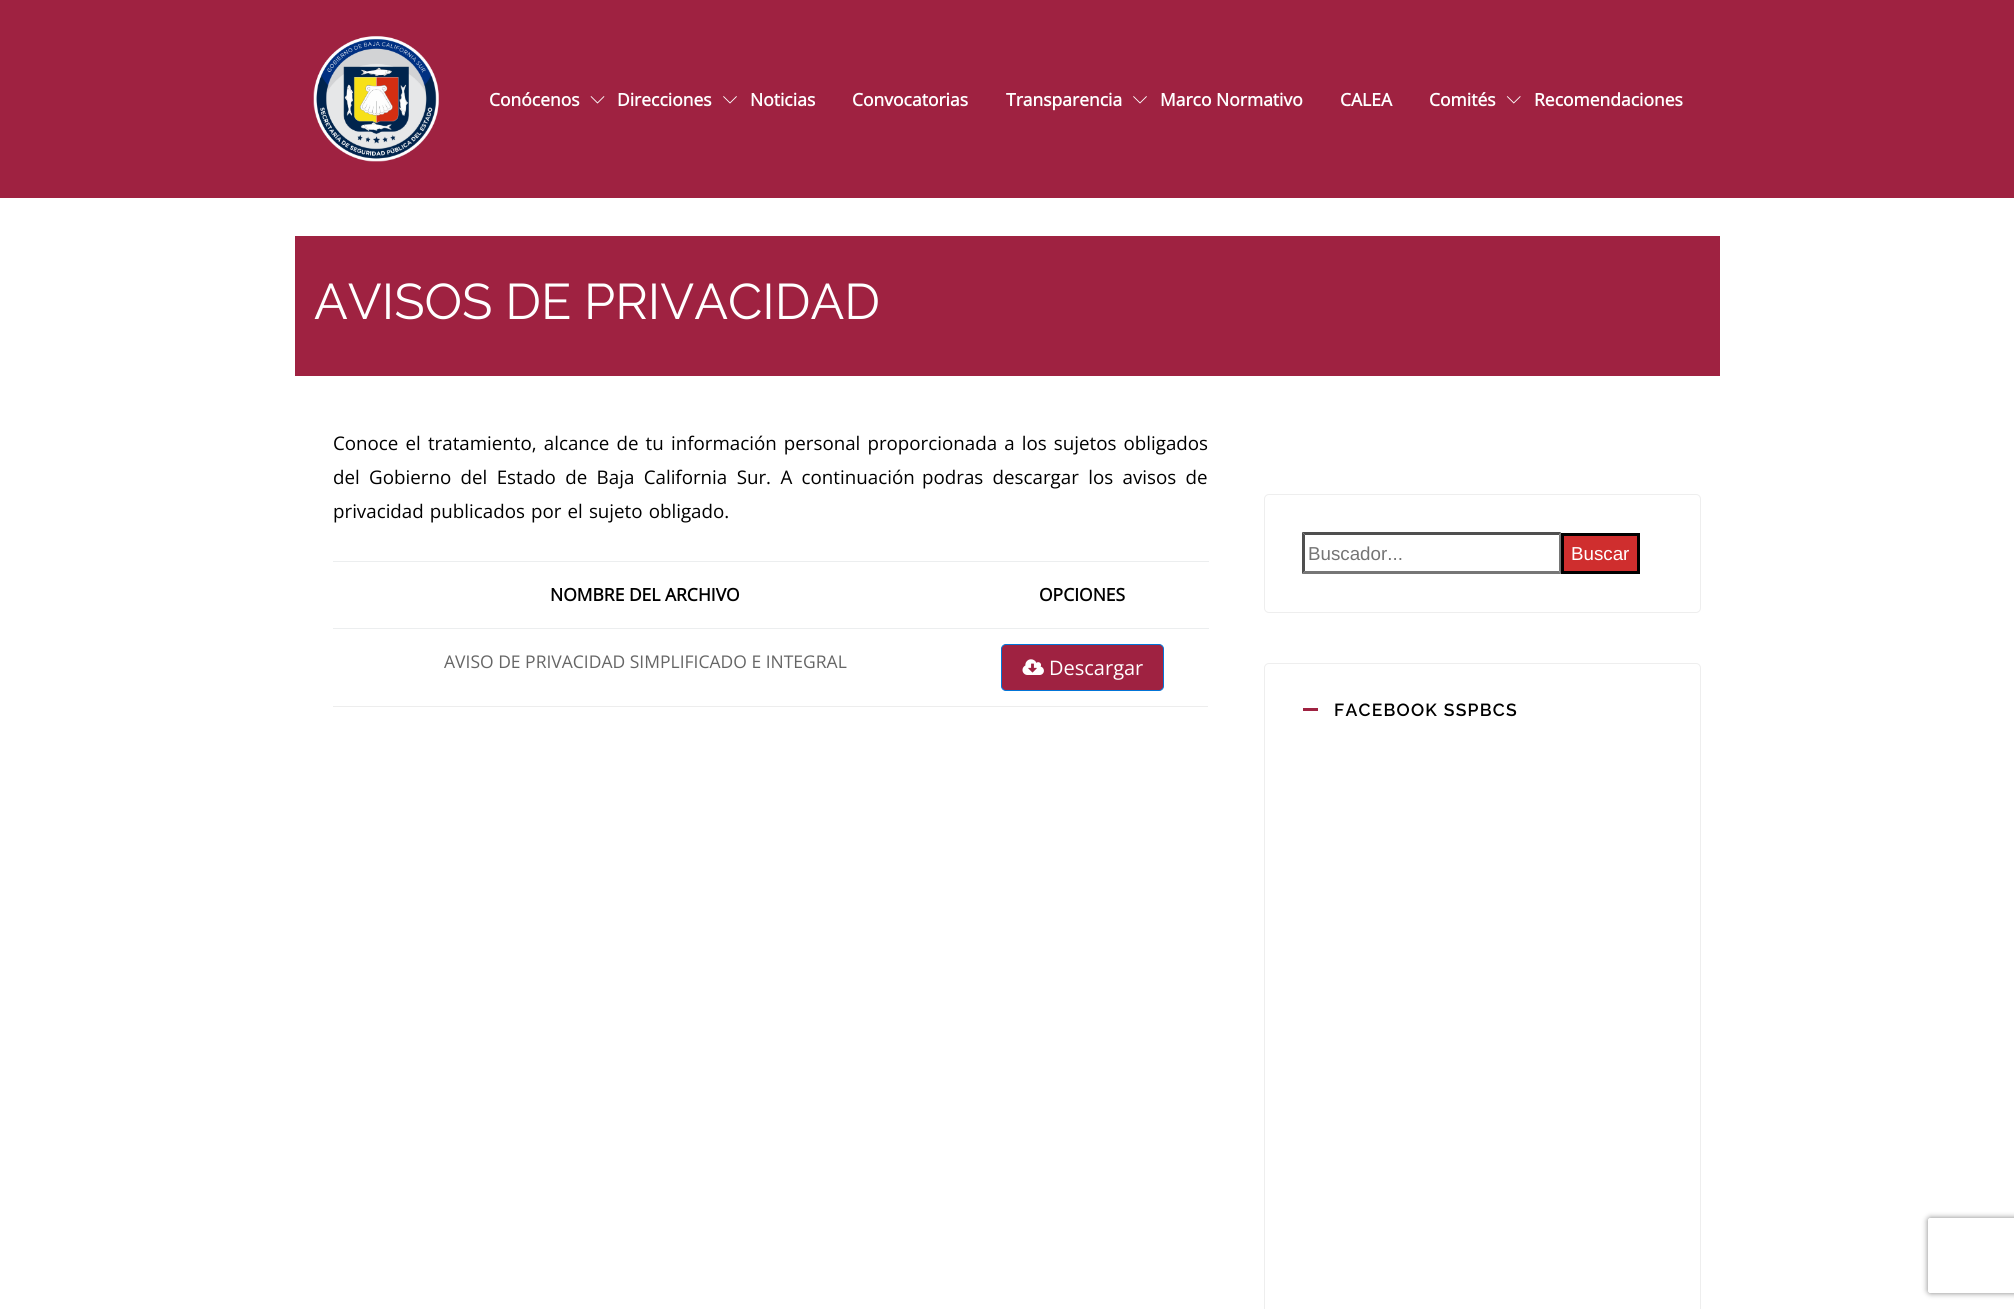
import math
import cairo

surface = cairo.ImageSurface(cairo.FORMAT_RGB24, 2014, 1309)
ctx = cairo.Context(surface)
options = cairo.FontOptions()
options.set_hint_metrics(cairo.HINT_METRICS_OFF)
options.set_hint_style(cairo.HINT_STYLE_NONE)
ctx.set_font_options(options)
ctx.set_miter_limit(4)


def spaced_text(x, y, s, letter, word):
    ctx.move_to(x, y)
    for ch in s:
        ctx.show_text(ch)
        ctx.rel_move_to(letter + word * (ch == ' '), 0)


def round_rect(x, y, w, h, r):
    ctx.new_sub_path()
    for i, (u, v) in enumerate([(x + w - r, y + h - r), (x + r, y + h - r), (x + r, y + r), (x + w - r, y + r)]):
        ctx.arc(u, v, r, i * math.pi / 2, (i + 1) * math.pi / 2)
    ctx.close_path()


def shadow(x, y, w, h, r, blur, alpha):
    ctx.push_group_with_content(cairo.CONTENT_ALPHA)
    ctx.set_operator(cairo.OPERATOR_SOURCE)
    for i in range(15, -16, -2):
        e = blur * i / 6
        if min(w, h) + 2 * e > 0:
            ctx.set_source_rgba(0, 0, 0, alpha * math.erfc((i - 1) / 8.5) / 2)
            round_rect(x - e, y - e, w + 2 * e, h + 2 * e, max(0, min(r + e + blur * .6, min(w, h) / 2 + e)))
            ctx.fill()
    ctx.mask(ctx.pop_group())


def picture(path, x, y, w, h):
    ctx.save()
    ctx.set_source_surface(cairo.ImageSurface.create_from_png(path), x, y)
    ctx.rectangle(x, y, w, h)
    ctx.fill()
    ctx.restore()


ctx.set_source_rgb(1, 1, 1)
ctx.paint()
ctx.set_source_rgb(0.624, 0.133, 0.255)
ctx.rectangle(0, 0, 2014, 198)
ctx.fill()
picture("img1.png", 313, 36, 126, 126)
ctx.select_font_face("Open Sans", cairo.FONT_SLANT_NORMAL, cairo.FONT_WEIGHT_BOLD)
ctx.set_font_size(17.5)
ctx.set_source_rgb(1, 1, 1)
ctx.move_to(489, 106)
ctx.show_text("Conócenos")
picture("img2.png", 590, 96, 15, 8)
ctx.move_to(617, 106)
ctx.show_text("Direcciones")
picture("img3.png", 723, 96, 14, 8)
ctx.move_to(750, 106)
ctx.show_text("Noticias")
ctx.move_to(852, 106)
ctx.show_text("Convocatorias")
ctx.move_to(1006, 106)
ctx.show_text("Transparencia")
picture("img3.png", 1133, 96, 14, 8)
ctx.move_to(1160, 106)
ctx.show_text("Marco Normativo")
ctx.move_to(1340, 106)
ctx.show_text("CALEA")
ctx.move_to(1429, 106)
ctx.show_text("Comités")
picture("img4.png", 1506, 96, 15, 8)
ctx.move_to(1534, 106)
ctx.show_text("Recomendaciones")
ctx.set_source_rgb(0.624, 0.133, 0.255)
ctx.rectangle(295, 236, 1425, 140)
ctx.fill()
ctx.select_font_face("Raleway")
ctx.set_font_size(50)
ctx.set_source_rgb(1, 1, 1)
ctx.move_to(314, 319)
ctx.show_text("AVISOS DE PRIVACIDAD")
ctx.select_font_face("Open Sans")
ctx.set_font_size(18.75)
ctx.set_source_rgb(0, 0, 0)
spaced_text(333, 450, "Conoce el tratamiento, alcance de tu información personal proporcionada a los sujetos obligados", 0, 2.25)
spaced_text(333, 484, "del Gobierno del Estado de Baja California Sur. A continuación", 0, 4.5)
spaced_text(922, 484, "podras descargar los avisos de", 0, 4.5)
spaced_text(333, 518, "privacidad publicados por el sujeto obligado.", 0, 1.25)
ctx.set_source_rgb(0.929, 0.929, 0.929)
ctx.rectangle(333, 706, 875, 1)
ctx.fill()
ctx.select_font_face("Open Sans", cairo.FONT_SLANT_NORMAL, cairo.FONT_WEIGHT_BOLD)
ctx.set_font_size(17.5)
ctx.set_source_rgb(0, 0, 0)
ctx.move_to(550, 601)
ctx.show_text("NOMBRE DEL ARCHIVO")
ctx.set_source_rgb(0.925, 0.933, 0.937)
ctx.rectangle(333, 561, 876, 1)
ctx.fill()
ctx.set_source_rgb(0, 0, 0)
ctx.move_to(1039, 601)
ctx.show_text("OPCIONES")
ctx.select_font_face("Open Sans")
ctx.set_source_rgb(0.4, 0.4, 0.4)
ctx.move_to(444, 668)
ctx.show_text("AVISO DE PRIVACIDAD SIMPLIFICADO E INTEGRAL")
ctx.set_source_rgb(0.925, 0.933, 0.937)
ctx.rectangle(333, 628, 876, 1)
ctx.fill()
ctx.set_source_rgb(0.624, 0.133, 0.255)
round_rect(1001.5, 644.5, 162, 46, 4.5)
ctx.fill_preserve()
ctx.set_source_rgb(0.008, 0.459, 0.847)
ctx.set_line_width(1)
ctx.stroke()
picture("img5.png", 1022, 659, 22, 16)
ctx.set_font_size(20)
ctx.set_source_rgb(1, 1, 1)
ctx.move_to(1049, 675)
ctx.show_text("Descargar")
round_rect(1264.5, 494.5, 436, 118, 4.5)
ctx.set_source_rgb(0.933, 0.933, 0.933)
ctx.stroke()
ctx.set_source_rgb(0.31, 0.31, 0.31)
ctx.new_path()
ctx.move_to(1302, 532)
ctx.line_to(1561, 532)
ctx.line_to(1559, 535)
ctx.line_to(1305, 535)
ctx.close_path()
ctx.fill()
ctx.set_source_rgb(0.463, 0.463, 0.463)
ctx.new_path()
ctx.move_to(1561, 532)
ctx.line_to(1561, 574)
ctx.line_to(1559, 571)
ctx.line_to(1559, 535)
ctx.close_path()
ctx.fill()
ctx.new_path()
ctx.move_to(1561, 574)
ctx.line_to(1302, 574)
ctx.line_to(1305, 571)
ctx.line_to(1559, 571)
ctx.close_path()
ctx.fill()
ctx.set_source_rgb(0.31, 0.31, 0.31)
ctx.new_path()
ctx.move_to(1302, 574)
ctx.line_to(1302, 532)
ctx.line_to(1305, 535)
ctx.line_to(1305, 571)
ctx.close_path()
ctx.fill()
ctx.select_font_face("Liberation Sans")
ctx.set_font_size(18.75)
ctx.set_source_rgb(0.459, 0.459, 0.459)
ctx.move_to(1308, 560)
ctx.show_text("Buscador...")
ctx.set_source_rgb(0.812, 0.18, 0.18)
ctx.rectangle(1562.5, 534.5, 76, 38)
ctx.fill_preserve()
ctx.set_source_rgb(0, 0, 0)
ctx.set_line_width(3)
ctx.stroke()
ctx.set_source_rgb(1, 1, 1)
ctx.move_to(1571, 560)
ctx.show_text("Buscar")
round_rect(1264.5, 663.5, 436, 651, 4.5)
ctx.set_source_rgb(0.933, 0.933, 0.933)
ctx.set_line_width(1)
ctx.stroke()
ctx.set_source_rgb(0.624, 0.133, 0.255)
ctx.rectangle(1303, 708, 15, 3)
ctx.fill()
ctx.select_font_face("Raleway SemiBold")
ctx.set_font_size(17.5)
ctx.set_source_rgb(0, 0, 0)
spaced_text(1334, 716, "FACEBOOK SSPBCS", 1.25, 0)
ctx.save()
ctx.set_fill_rule(cairo.FILL_RULE_EVEN_ODD)
ctx.new_path()
ctx.move_to(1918, 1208)
ctx.line_to(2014, 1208)
ctx.line_to(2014, 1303)
ctx.line_to(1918, 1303)
ctx.close_path()
ctx.move_to(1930.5, 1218)
ctx.line_to(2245.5, 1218)
ctx.curve_to(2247, 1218, 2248, 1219, 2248, 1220.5)
ctx.line_to(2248, 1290.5)
ctx.curve_to(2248, 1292, 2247, 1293, 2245.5, 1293)
ctx.line_to(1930.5, 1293)
ctx.curve_to(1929, 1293, 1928, 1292, 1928, 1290.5)
ctx.line_to(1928, 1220.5)
ctx.curve_to(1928, 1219, 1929, 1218, 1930.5, 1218)
ctx.close_path()
ctx.clip()
ctx.set_source_rgb(0.502, 0.502, 0.502)
shadow(1928, 1218, 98, 75, 2.5, 3, 1)
ctx.restore()
surface.write_to_png("page.png")
